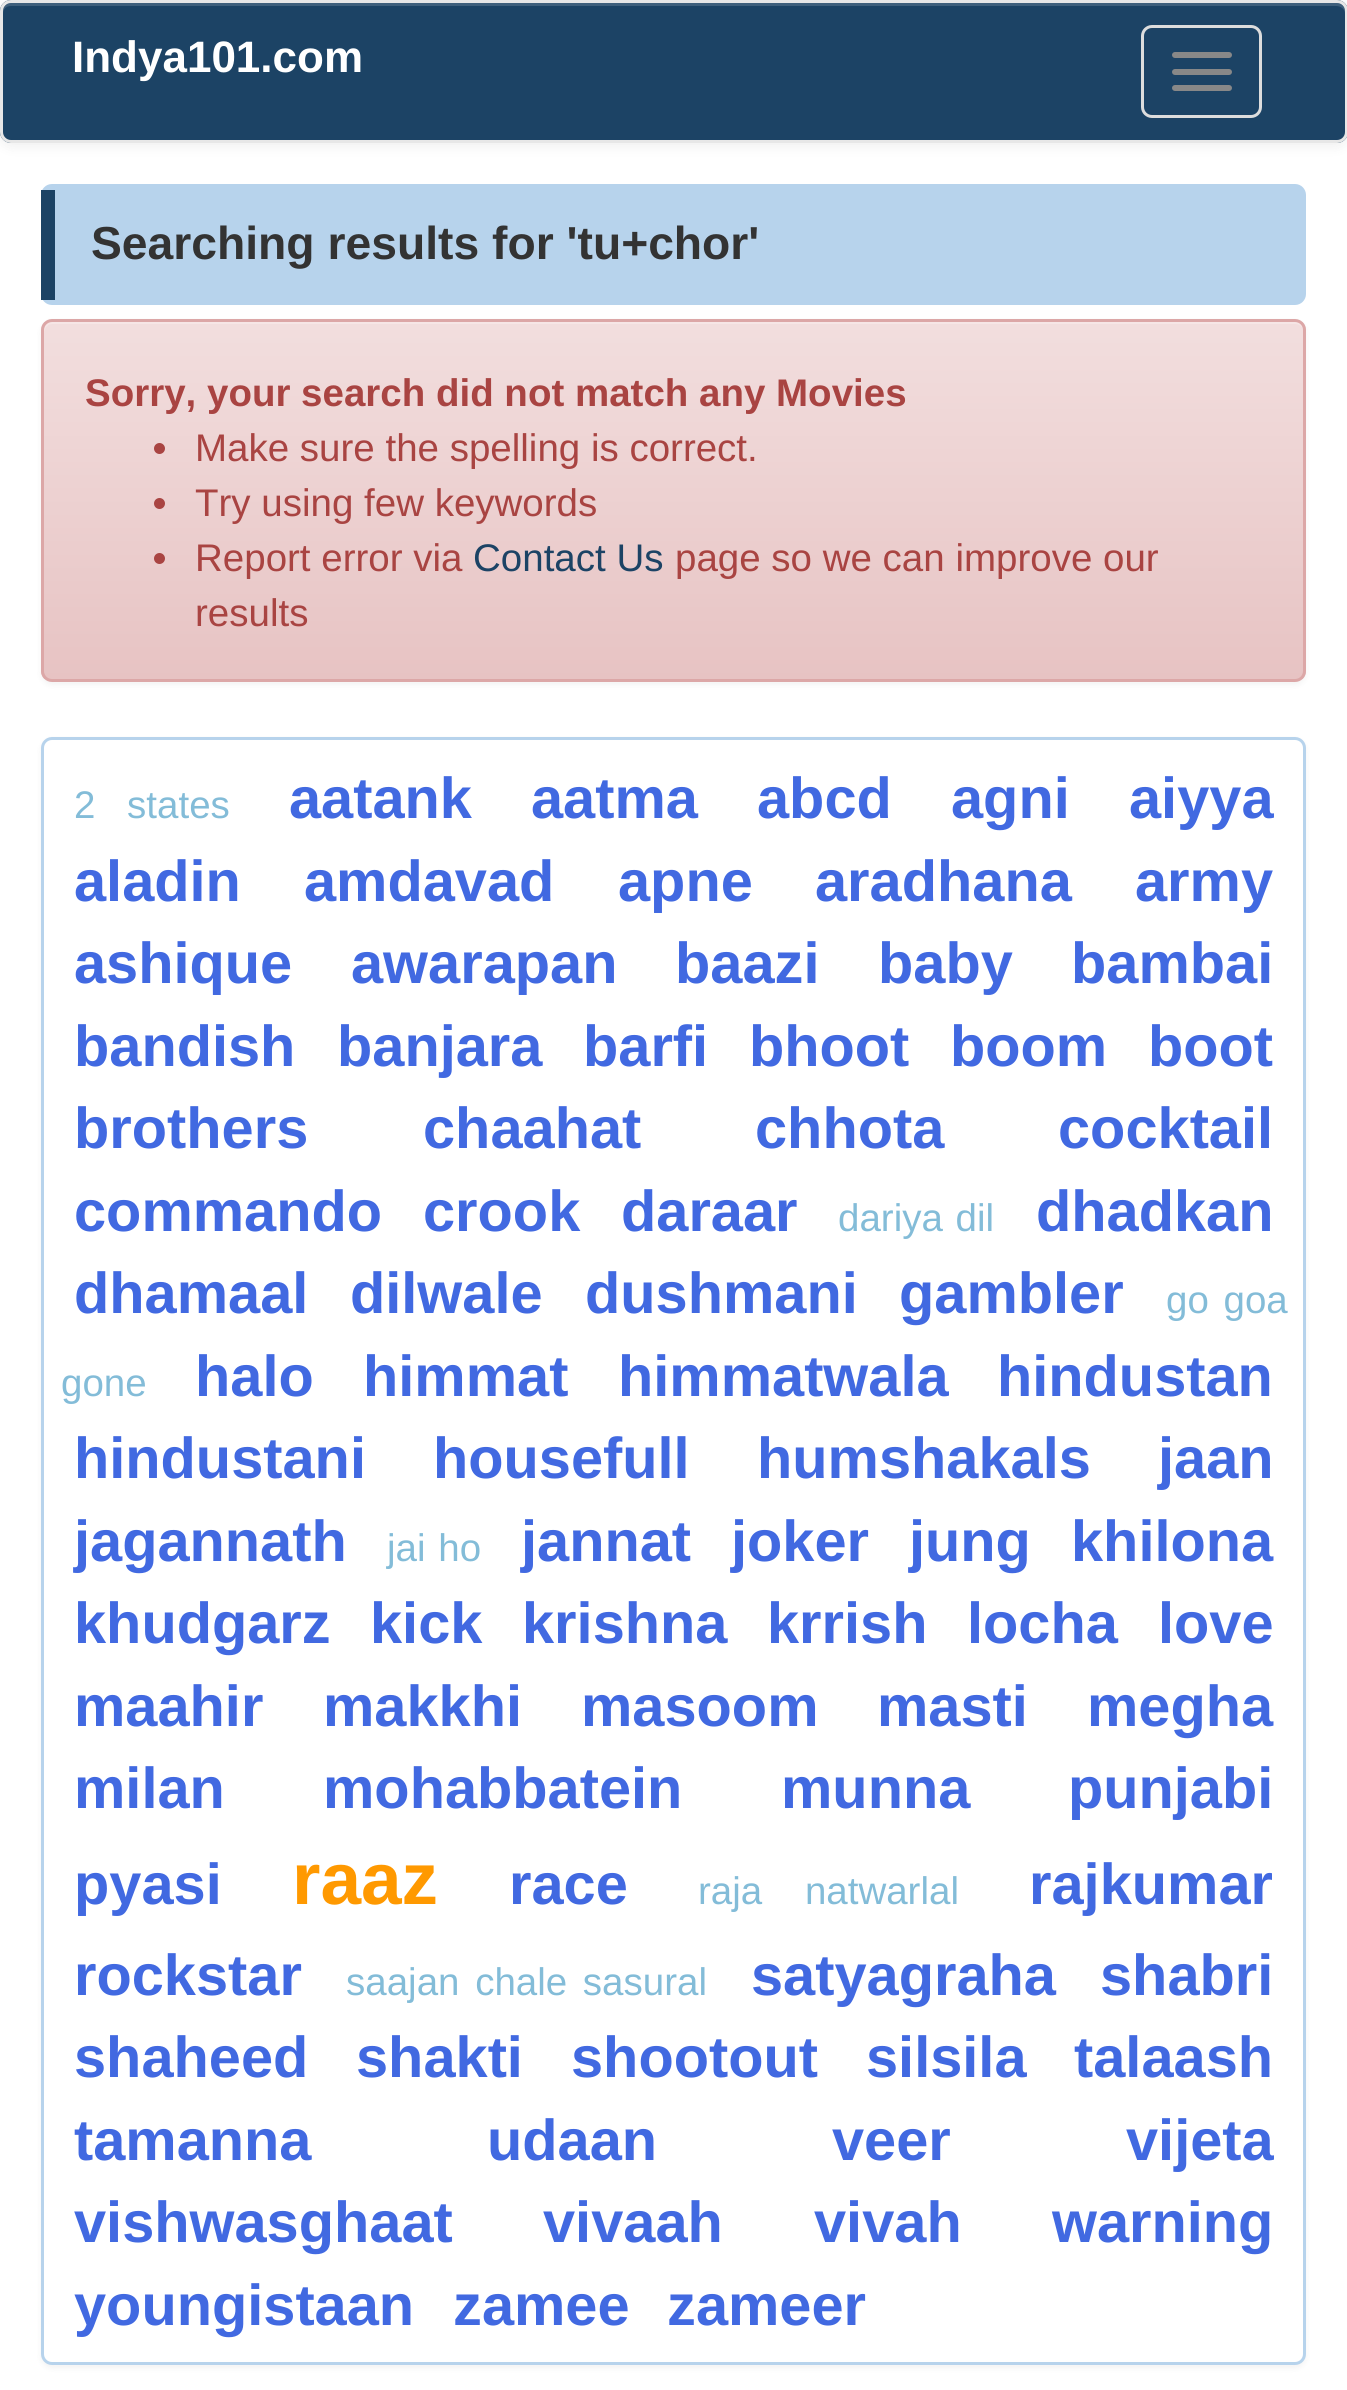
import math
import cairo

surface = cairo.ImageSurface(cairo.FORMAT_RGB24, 1347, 2390)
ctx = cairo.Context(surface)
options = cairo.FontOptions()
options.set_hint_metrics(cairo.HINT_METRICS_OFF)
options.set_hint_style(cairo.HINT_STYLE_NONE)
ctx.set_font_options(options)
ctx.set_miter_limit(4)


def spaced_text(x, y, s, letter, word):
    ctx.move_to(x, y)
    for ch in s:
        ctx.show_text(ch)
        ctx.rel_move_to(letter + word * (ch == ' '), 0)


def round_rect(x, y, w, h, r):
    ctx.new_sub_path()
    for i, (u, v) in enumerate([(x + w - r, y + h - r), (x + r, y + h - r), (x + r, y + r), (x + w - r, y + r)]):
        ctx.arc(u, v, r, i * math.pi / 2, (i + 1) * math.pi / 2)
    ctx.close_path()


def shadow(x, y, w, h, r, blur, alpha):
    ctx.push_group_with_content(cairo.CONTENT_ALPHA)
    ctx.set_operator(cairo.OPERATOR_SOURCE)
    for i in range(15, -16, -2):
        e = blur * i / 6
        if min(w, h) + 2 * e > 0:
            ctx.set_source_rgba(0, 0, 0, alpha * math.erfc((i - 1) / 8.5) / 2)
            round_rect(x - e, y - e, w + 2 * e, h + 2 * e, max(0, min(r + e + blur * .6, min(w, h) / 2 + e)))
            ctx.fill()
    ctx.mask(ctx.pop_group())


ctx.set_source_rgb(1, 1, 1)
ctx.paint()
ctx.set_source_rgb(0, 0, 0)
shadow(0, 3, 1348, 143, 11, 7, 0.07)
ctx.set_source_rgb(0.11, 0.263, 0.396)
round_rect(0, 0, 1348, 143, 11)
ctx.fill()
ctx.set_source_rgb(0.243, 0.373, 0.486)
ctx.new_path()
ctx.move_to(11, 6)
ctx.line_to(1336, 6)
ctx.curve_to(1341, 6, 1345, 9, 1345, 14)
ctx.line_to(1345, 11)
ctx.curve_to(1345, 7, 1341, 3, 1337, 3)
ctx.line_to(11, 3)
ctx.curve_to(7, 3, 3, 7, 3, 11)
ctx.line_to(3, 14)
ctx.curve_to(3, 9, 6, 6, 11, 6)
ctx.close_path()
ctx.fill()
round_rect(1.5, 1.5, 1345, 140, 9.5)
ctx.set_source_rgb(0.906, 0.906, 0.906)
ctx.set_line_width(3)
ctx.stroke()
ctx.select_font_face("Liberation Sans", cairo.FONT_SLANT_NORMAL, cairo.FONT_WEIGHT_BOLD)
ctx.set_font_size(44)
ctx.set_source_rgb(1, 1, 1)
ctx.move_to(72, 72)
ctx.show_text("Indya101.com")
round_rect(1142.5, 26.5, 118, 90, 9.5)
ctx.set_source_rgb(0.867, 0.867, 0.867)
ctx.stroke()
ctx.set_source_rgb(0.533, 0.533, 0.533)
round_rect(1172, 52, 60, 6, 3)
ctx.fill()
round_rect(1172, 69, 60, 6, 3)
ctx.fill()
round_rect(1172, 85, 60, 6, 3)
ctx.fill()
ctx.set_source_rgb(0.718, 0.827, 0.922)
round_rect(41, 184, 1265, 121, 11)
ctx.fill()
ctx.set_source_rgb(0.11, 0.263, 0.396)
ctx.rectangle(41, 190, 14, 110)
ctx.fill()
ctx.set_font_size(46.25)
ctx.set_source_rgb(0.2, 0.2, 0.2)
ctx.move_to(91, 259)
ctx.show_text("Searching results for 'tu+chor'")
ctx.set_source_rgb(0, 0, 0)
shadow(41, 322, 1265, 363, 11, 3, 0.05)
ctx.save()
round_rect(41, 319, 1265, 363, 11)
ctx.clip()
gradient = cairo.LinearGradient(674, 322, 674, 679)
gradient.add_color_stop_rgba(0, 0.949, 0.871, 0.871, 1)
gradient.add_color_stop_rgba(1, 0.906, 0.765, 0.765, 1)
ctx.set_source(gradient)
ctx.rectangle(41, 322, 1265, 357)
ctx.fill()
ctx.restore()
ctx.set_source_rgb(0.961, 0.902, 0.902)
ctx.new_path()
ctx.move_to(52, 324)
ctx.line_to(1295, 324)
ctx.curve_to(1300, 324, 1304, 328, 1304, 333)
ctx.line_to(1304, 330)
ctx.curve_to(1304, 326, 1300, 322, 1296, 322)
ctx.line_to(52, 322)
ctx.curve_to(48, 322, 44, 326, 44, 330)
ctx.line_to(44, 333)
ctx.curve_to(44, 328, 48, 324, 52, 324)
ctx.close_path()
ctx.fill()
round_rect(42.5, 320.5, 1262, 360, 9.5)
ctx.set_source_rgb(0.863, 0.655, 0.655)
ctx.stroke()
ctx.set_font_size(38.5)
ctx.set_source_rgb(0.663, 0.267, 0.259)
ctx.move_to(85, 406)
ctx.show_text("Sorry, your search did not match any Movies")
ctx.new_path()
ctx.arc(159.5, 448.5, 5.5, 0, 2 * math.pi)
ctx.fill()
ctx.select_font_face("Liberation Sans")
ctx.move_to(195, 461)
ctx.show_text("Make sure the spelling is correct.")
ctx.new_path()
ctx.arc(159.5, 503.5, 5.5, 0, 2 * math.pi)
ctx.fill()
ctx.move_to(195, 516)
ctx.show_text("Try using few keywords")
ctx.new_path()
ctx.arc(159.5, 558.5, 5.5, 0, 2 * math.pi)
ctx.fill()
ctx.move_to(195, 571)
ctx.show_text("Report error via")
ctx.set_source_rgb(0.11, 0.263, 0.396)
ctx.move_to(473, 571)
ctx.show_text("Contact Us")
ctx.set_source_rgb(0.663, 0.267, 0.259)
ctx.move_to(675, 571)
ctx.show_text("page so we can improve our")
ctx.move_to(195, 626)
ctx.show_text("results")
ctx.set_source_rgb(0, 0, 0)
shadow(41, 740, 1265, 1628, 11, 3, 0.05)
ctx.set_source_rgb(1, 1, 1)
round_rect(42.5, 738.5, 1262, 1625, 9.5)
ctx.fill_preserve()
ctx.set_source_rgb(0.718, 0.827, 0.922)
ctx.stroke()
ctx.set_source_rgb(0.514, 0.737, 0.847)
spaced_text(74, 818, "2 states", 0, 21)
ctx.select_font_face("Liberation Sans", cairo.FONT_SLANT_NORMAL, cairo.FONT_WEIGHT_BOLD)
ctx.set_font_size(57.75)
ctx.set_source_rgb(0.255, 0.412, 0.882)
ctx.move_to(289, 818)
ctx.show_text("aatank")
ctx.move_to(531, 818)
ctx.show_text("aatma")
ctx.move_to(757, 818)
ctx.show_text("abcd")
ctx.move_to(951, 818)
ctx.show_text("agni")
ctx.move_to(1129, 818)
ctx.show_text("aiyya")
ctx.move_to(74, 901)
ctx.show_text("aladin")
ctx.move_to(304, 901)
ctx.show_text("amdavad")
ctx.move_to(618, 901)
ctx.show_text("apne")
ctx.move_to(815, 901)
ctx.show_text("aradhana")
ctx.move_to(1135, 901)
ctx.show_text("army")
ctx.move_to(74, 983)
ctx.show_text("ashique")
ctx.move_to(351, 983)
ctx.show_text("awarapan")
ctx.move_to(675, 983)
ctx.show_text("baazi")
ctx.move_to(878, 983)
ctx.show_text("baby")
ctx.move_to(1071, 983)
ctx.show_text("bambai")
ctx.move_to(74, 1066)
ctx.show_text("bandish")
ctx.move_to(337, 1066)
ctx.show_text("banjara")
ctx.move_to(583, 1066)
ctx.show_text("barfi")
ctx.move_to(749, 1066)
ctx.show_text("bhoot")
ctx.move_to(950, 1066)
ctx.show_text("boom")
ctx.move_to(1148, 1066)
ctx.show_text("boot")
ctx.move_to(74, 1148)
ctx.show_text("brothers")
ctx.move_to(423, 1148)
ctx.show_text("chaahat")
ctx.move_to(755, 1148)
ctx.show_text("chhota")
ctx.move_to(1058, 1148)
ctx.show_text("cocktail")
ctx.move_to(74, 1231)
ctx.show_text("commando")
ctx.move_to(423, 1231)
ctx.show_text("crook")
ctx.move_to(621, 1231)
ctx.show_text("daraar")
ctx.select_font_face("Liberation Sans")
ctx.set_font_size(38.5)
ctx.set_source_rgb(0.514, 0.737, 0.847)
spaced_text(838, 1231, "dariya dil", 0, 2)
ctx.select_font_face("Liberation Sans", cairo.FONT_SLANT_NORMAL, cairo.FONT_WEIGHT_BOLD)
ctx.set_font_size(57.75)
ctx.set_source_rgb(0.255, 0.412, 0.882)
ctx.move_to(1036, 1231)
ctx.show_text("dhadkan")
ctx.move_to(74, 1313)
ctx.show_text("dhamaal")
ctx.move_to(350, 1313)
ctx.show_text("dilwale")
ctx.move_to(585, 1313)
ctx.show_text("dushmani")
ctx.move_to(899, 1313)
ctx.show_text("gambler")
ctx.select_font_face("Liberation Sans")
ctx.set_font_size(38.5)
ctx.set_source_rgb(0.514, 0.737, 0.847)
spaced_text(1166, 1313, "go goa", 0, 4)
ctx.move_to(61, 1396)
ctx.show_text("gone")
ctx.select_font_face("Liberation Sans", cairo.FONT_SLANT_NORMAL, cairo.FONT_WEIGHT_BOLD)
ctx.set_font_size(57.75)
ctx.set_source_rgb(0.255, 0.412, 0.882)
ctx.move_to(195, 1396)
ctx.show_text("halo")
ctx.move_to(363, 1396)
ctx.show_text("himmat")
ctx.move_to(618, 1396)
ctx.show_text("himmatwala")
ctx.move_to(997, 1396)
ctx.show_text("hindustan")
ctx.move_to(74, 1478)
ctx.show_text("hindustani")
ctx.move_to(433, 1478)
ctx.show_text("housefull")
ctx.move_to(757, 1478)
ctx.show_text("humshakals")
ctx.move_to(1158, 1478)
ctx.show_text("jaan")
ctx.move_to(74, 1561)
ctx.show_text("jagannath")
ctx.select_font_face("Liberation Sans")
ctx.set_font_size(38.5)
ctx.set_source_rgb(0.514, 0.737, 0.847)
spaced_text(387, 1561, "jai ho", 0, 2)
ctx.select_font_face("Liberation Sans", cairo.FONT_SLANT_NORMAL, cairo.FONT_WEIGHT_BOLD)
ctx.set_font_size(57.75)
ctx.set_source_rgb(0.255, 0.412, 0.882)
ctx.move_to(521, 1561)
ctx.show_text("jannat")
ctx.move_to(731, 1561)
ctx.show_text("joker")
ctx.move_to(909, 1561)
ctx.show_text("jung")
ctx.move_to(1071, 1561)
ctx.show_text("khilona")
ctx.move_to(74, 1643)
ctx.show_text("khudgarz")
ctx.move_to(370, 1643)
ctx.show_text("kick")
ctx.move_to(522, 1643)
ctx.show_text("krishna")
ctx.move_to(767, 1643)
ctx.show_text("krrish")
ctx.move_to(967, 1643)
ctx.show_text("locha")
ctx.move_to(1158, 1643)
ctx.show_text("love")
ctx.move_to(74, 1726)
ctx.show_text("maahir")
ctx.move_to(323, 1726)
ctx.show_text("makkhi")
ctx.move_to(581, 1726)
ctx.show_text("masoom")
ctx.move_to(877, 1726)
ctx.show_text("masti")
ctx.move_to(1087, 1726)
ctx.show_text("megha")
ctx.move_to(74, 1808)
ctx.show_text("milan")
ctx.move_to(323, 1808)
ctx.show_text("mohabbatein")
ctx.move_to(781, 1808)
ctx.show_text("munna")
ctx.move_to(1068, 1808)
ctx.show_text("punjabi")
ctx.move_to(74, 1904)
ctx.show_text("pyasi")
ctx.set_font_size(73)
ctx.set_source_rgb(1, 0.6, 0)
ctx.move_to(292, 1904)
ctx.show_text("raaz")
ctx.set_font_size(57.75)
ctx.set_source_rgb(0.255, 0.412, 0.882)
ctx.move_to(509, 1904)
ctx.show_text("race")
ctx.select_font_face("Liberation Sans")
ctx.set_font_size(38.5)
ctx.set_source_rgb(0.514, 0.737, 0.847)
spaced_text(698, 1904, "raja natwarlal", 0, 32)
ctx.select_font_face("Liberation Sans", cairo.FONT_SLANT_NORMAL, cairo.FONT_WEIGHT_BOLD)
ctx.set_font_size(57.75)
ctx.set_source_rgb(0.255, 0.412, 0.882)
ctx.move_to(1029, 1904)
ctx.show_text("rajkumar")
ctx.move_to(74, 1995)
ctx.show_text("rockstar")
ctx.select_font_face("Liberation Sans")
ctx.set_font_size(38.5)
ctx.set_source_rgb(0.514, 0.737, 0.847)
spaced_text(346, 1995, "saajan chale sasural", 0, 5)
ctx.select_font_face("Liberation Sans", cairo.FONT_SLANT_NORMAL, cairo.FONT_WEIGHT_BOLD)
ctx.set_font_size(57.75)
ctx.set_source_rgb(0.255, 0.412, 0.882)
ctx.move_to(751, 1995)
ctx.show_text("satyagraha")
ctx.move_to(1100, 1995)
ctx.show_text("shabri")
ctx.move_to(74, 2077)
ctx.show_text("shaheed")
ctx.move_to(356, 2077)
ctx.show_text("shakti")
ctx.move_to(571, 2077)
ctx.show_text("shootout")
ctx.move_to(866, 2077)
ctx.show_text("silsila")
ctx.move_to(1074, 2077)
ctx.show_text("talaash")
ctx.move_to(74, 2160)
ctx.show_text("tamanna")
ctx.move_to(487, 2160)
ctx.show_text("udaan")
ctx.move_to(832, 2160)
ctx.show_text("veer")
ctx.move_to(1126, 2160)
ctx.show_text("vijeta")
ctx.move_to(74, 2242)
ctx.show_text("vishwasghaat")
ctx.move_to(543, 2242)
ctx.show_text("vivaah")
ctx.move_to(814, 2242)
ctx.show_text("vivah")
ctx.move_to(1052, 2242)
ctx.show_text("warning")
ctx.move_to(74, 2325)
ctx.show_text("youngistaan")
ctx.move_to(453, 2325)
ctx.show_text("zamee")
ctx.move_to(667, 2325)
ctx.show_text("zameer")
surface.write_to_png("page.png")
